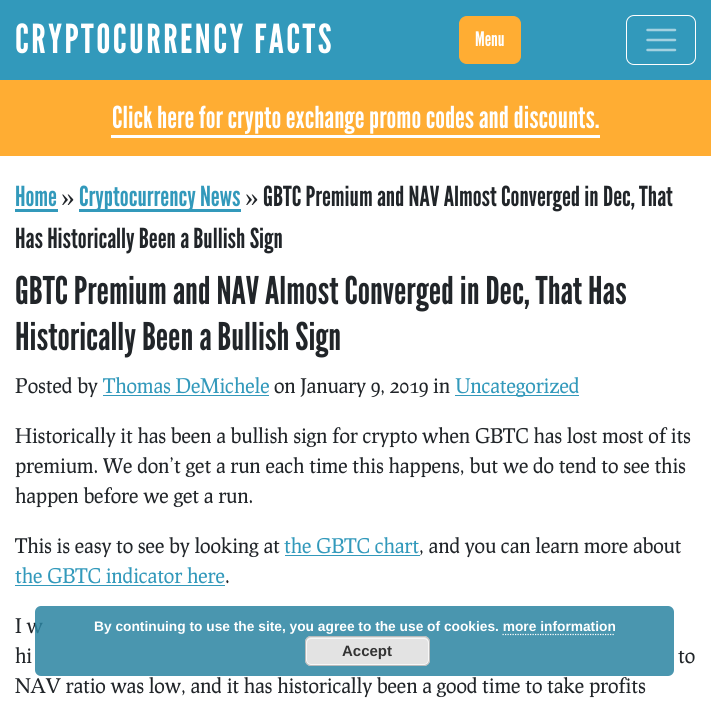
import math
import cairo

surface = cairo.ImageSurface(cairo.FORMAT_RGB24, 711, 713)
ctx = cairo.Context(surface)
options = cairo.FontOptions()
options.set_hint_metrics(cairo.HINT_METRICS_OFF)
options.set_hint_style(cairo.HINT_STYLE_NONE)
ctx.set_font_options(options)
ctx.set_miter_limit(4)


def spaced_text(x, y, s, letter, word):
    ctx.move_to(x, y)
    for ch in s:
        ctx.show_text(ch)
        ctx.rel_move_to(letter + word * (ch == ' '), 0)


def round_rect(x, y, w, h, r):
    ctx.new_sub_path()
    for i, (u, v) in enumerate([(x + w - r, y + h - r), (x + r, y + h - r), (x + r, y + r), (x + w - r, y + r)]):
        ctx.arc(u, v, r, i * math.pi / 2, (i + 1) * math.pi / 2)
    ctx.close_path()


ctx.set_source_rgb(1, 1, 1)
ctx.paint()
ctx.set_source_rgb(0.196, 0.6, 0.733)
ctx.rectangle(0, 0, 711, 80)
ctx.fill()
ctx.select_font_face("League Gothic")
ctx.set_font_size(40)
ctx.set_source_rgb(1, 1, 1)
spaced_text(15, 53, "CRYPTOCURRENCY FACTS", 2.5, 0)
ctx.set_source_rgb(1, 0.678, 0.2)
round_rect(459.5, 16.5, 61, 47, 7.5)
ctx.fill_preserve()
ctx.set_line_width(1)
ctx.stroke()
ctx.set_font_size(20)
ctx.set_source_rgb(1, 1, 1)
ctx.move_to(475, 46)
ctx.show_text("Menu")
round_rect(626.5, 15.5, 69, 49, 7.5)
ctx.stroke()
ctx.new_path()
ctx.move_to(647.5, 30)
ctx.line_to(675, 30)
ctx.move_to(647.5, 40)
ctx.line_to(675, 40)
ctx.move_to(647.5, 50)
ctx.line_to(675, 50)
ctx.set_source_rgb(0.639, 0.82, 0.878)
ctx.set_line_width(2.5)
ctx.set_line_cap(cairo.LINE_CAP_ROUND)
ctx.stroke()
ctx.set_source_rgb(1, 0.678, 0.2)
ctx.rectangle(0, 80, 711, 76)
ctx.fill()
ctx.set_font_size(30.25)
ctx.set_source_rgb(1, 1, 1)
ctx.move_to(112, 128)
ctx.show_text("Click here for crypto exchange promo codes and discounts.")
ctx.rectangle(111, 135, 489, 3)
ctx.fill()
ctx.set_font_size(27.6)
ctx.set_source_rgb(0.196, 0.6, 0.733)
ctx.move_to(15, 206)
ctx.show_text("Home")
ctx.select_font_face("Liberation Serif")
ctx.set_source_rgb(0.129, 0.145, 0.161)
ctx.move_to(61, 206)
ctx.show_text("»")
ctx.set_source_rgb(0.196, 0.6, 0.733)
ctx.rectangle(15, 209, 43, 3)
ctx.fill()
ctx.rectangle(79, 209, 162, 3)
ctx.fill()
ctx.select_font_face("League Gothic")
ctx.move_to(79, 206)
ctx.show_text("Cryptocurrency News")
ctx.select_font_face("Liberation Serif")
ctx.set_source_rgb(0.129, 0.145, 0.161)
ctx.move_to(245, 206)
ctx.show_text("»")
ctx.select_font_face("League Gothic")
ctx.move_to(263, 206)
ctx.show_text("GBTC Premium and NAV Almost Converged in Dec, That")
ctx.move_to(15, 248)
ctx.show_text("Has Historically Been a Bullish Sign")
ctx.set_font_size(38.2)
ctx.move_to(15, 304)
ctx.show_text("GBTC Premium and NAV Almost Converged in Dec, That Has")
ctx.move_to(15, 350)
ctx.show_text("Historically Been a Bullish Sign")
ctx.select_font_face("Prociono", cairo.FONT_SLANT_ITALIC)
ctx.set_font_size(20)
ctx.move_to(15, 393)
ctx.show_text("Posted by")
ctx.set_source_rgb(0.196, 0.6, 0.733)
ctx.move_to(103, 393)
ctx.show_text("Thomas DeMichele")
ctx.rectangle(103, 395, 166, 1)
ctx.fill()
ctx.set_source_rgb(0.129, 0.145, 0.161)
ctx.move_to(274, 393)
ctx.show_text("on January 9, 2019 in")
ctx.set_source_rgb(0.196, 0.6, 0.733)
ctx.rectangle(455, 395, 124, 1)
ctx.fill()
ctx.move_to(455, 393)
ctx.show_text("Uncategorized")
ctx.set_source_rgb(0.129, 0.145, 0.161)
ctx.move_to(15, 443)
ctx.show_text("Historically it has been a bullish sign for crypto when GBTC has lost most of its")
ctx.move_to(15, 473)
ctx.show_text("premium. We don’t get a run each time this happens, but we do tend to see this")
ctx.move_to(15, 503)
ctx.show_text("happen before we get a run.")
ctx.move_to(15, 553)
ctx.show_text("This is easy to see by looking at")
ctx.set_source_rgb(0.196, 0.6, 0.733)
ctx.move_to(284, 553)
ctx.show_text("the GBTC chart")
ctx.rectangle(285, 555, 135, 1)
ctx.fill()
ctx.set_source_rgb(0.129, 0.145, 0.161)
ctx.move_to(419, 553)
ctx.show_text(", and you can learn more about")
ctx.set_source_rgb(0.196, 0.6, 0.733)
ctx.move_to(15, 583)
ctx.show_text("the GBTC indicator here")
ctx.rectangle(15, 585, 210, 1)
ctx.fill()
ctx.set_source_rgb(0.129, 0.145, 0.161)
ctx.move_to(225, 583)
ctx.show_text(".")
ctx.move_to(15, 633)
ctx.show_text("I w")
ctx.move_to(15, 663)
ctx.show_text("hi")
ctx.move_to(678, 663)
ctx.show_text("to")
ctx.move_to(15, 693)
ctx.show_text("NAV ratio was low, and it has historically been a good time to take profits")
ctx.set_source_rgba(0.169, 0.518, 0.631, 0.85)
round_rect(35, 606, 639, 70, 6)
ctx.fill()
ctx.select_font_face("Liberation Sans", cairo.FONT_SLANT_NORMAL, cairo.FONT_WEIGHT_BOLD)
ctx.set_font_size(13.75)
ctx.set_source_rgb(1, 1, 1)
ctx.move_to(94, 631)
ctx.show_text("By continuing to use the site, you agree to the use of cookies. more information")
ctx.new_path()
ctx.move_to(502.5, 634.5)
ctx.line_to(615, 634.5)
ctx.set_line_width(1.2)
ctx.set_line_cap(cairo.LINE_CAP_BUTT)
ctx.set_dash([1.25, 1.25])
ctx.stroke()
ctx.set_source_rgb(0.89, 0.89, 0.89)
round_rect(305, 636, 125, 30, 6)
ctx.fill()
round_rect(306.5, 638.5, 122, 26, 4.5)
ctx.set_source_rgb(0.965, 0.965, 0.965)
ctx.set_line_width(1)
ctx.set_dash([])
ctx.stroke()
round_rect(305.5, 636.5, 124, 29, 5.5)
ctx.set_source_rgb(0.733, 0.733, 0.733)
ctx.stroke()
ctx.set_font_size(15)
ctx.set_source_rgb(0.2, 0.2, 0.2)
ctx.move_to(342, 656)
ctx.show_text("Accept")
surface.write_to_png("page.png")
